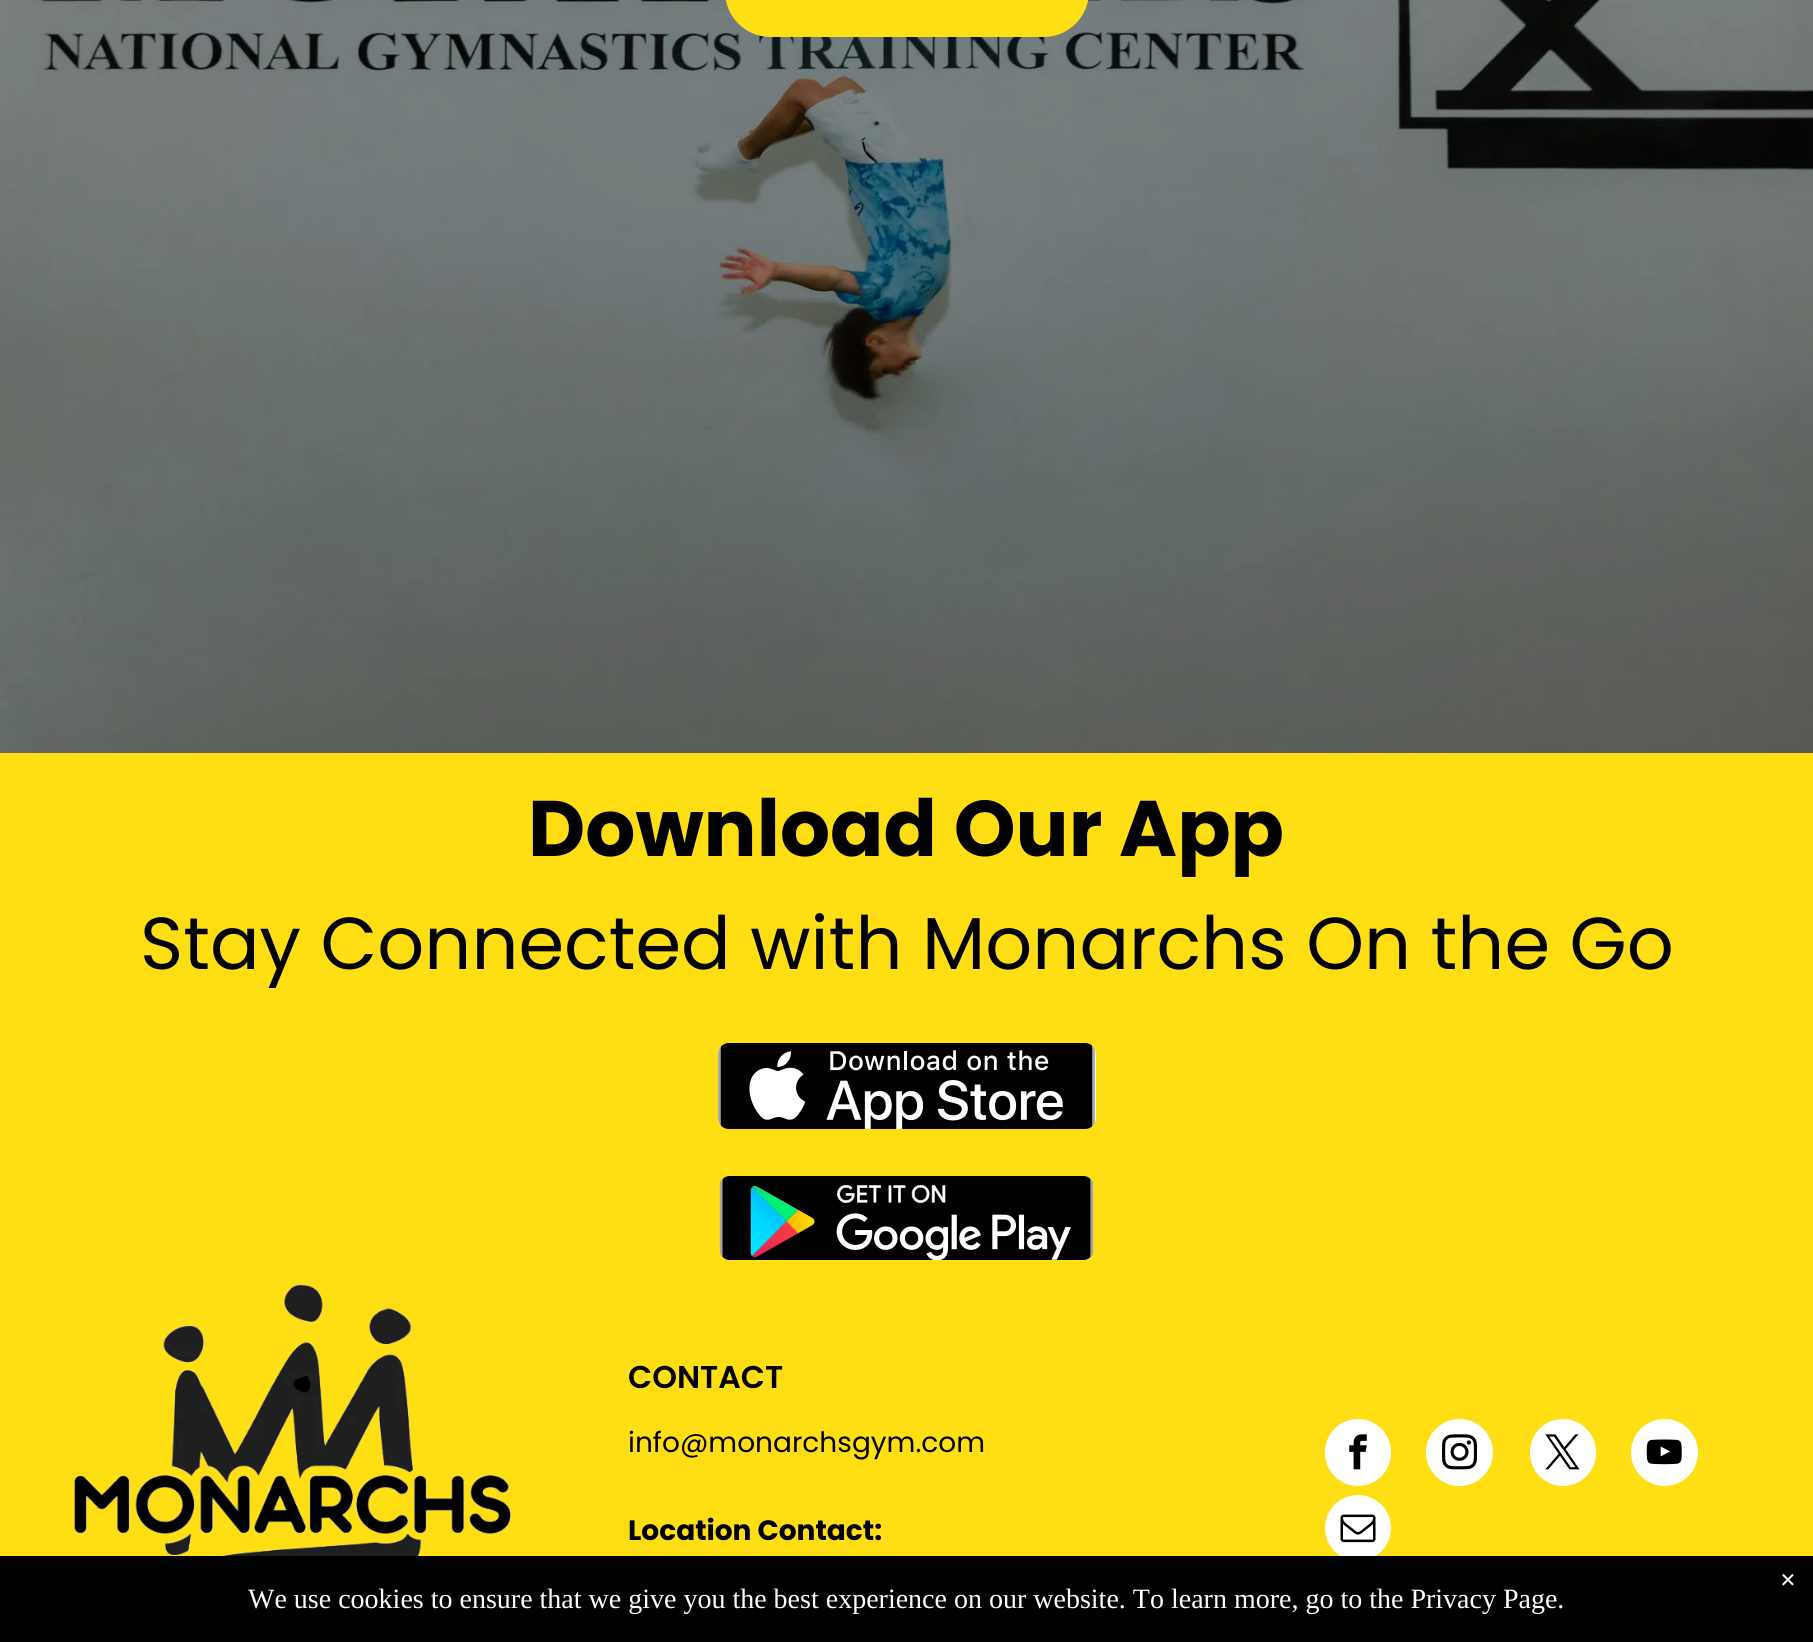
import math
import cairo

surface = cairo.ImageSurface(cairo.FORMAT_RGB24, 1813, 1642)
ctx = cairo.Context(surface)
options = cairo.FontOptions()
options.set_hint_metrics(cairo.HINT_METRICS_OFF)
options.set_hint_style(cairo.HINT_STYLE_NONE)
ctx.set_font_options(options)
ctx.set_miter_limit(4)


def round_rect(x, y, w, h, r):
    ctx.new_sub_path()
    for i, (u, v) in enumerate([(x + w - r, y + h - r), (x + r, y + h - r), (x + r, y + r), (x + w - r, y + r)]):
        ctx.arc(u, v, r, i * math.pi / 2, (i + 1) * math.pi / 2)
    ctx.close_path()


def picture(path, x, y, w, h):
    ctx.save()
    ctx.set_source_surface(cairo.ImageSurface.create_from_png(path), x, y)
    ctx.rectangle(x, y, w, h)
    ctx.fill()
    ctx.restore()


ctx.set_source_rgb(1, 1, 1)
ctx.paint()
picture("img1.png", 0, 0, 1813, 753)
ctx.set_source_rgb(1, 0.871, 0.078)
round_rect(725, -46, 364, 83, 45.5)
ctx.fill()
ctx.rectangle(0, 753, 1813, 803)
ctx.fill()
ctx.select_font_face("Poppins", cairo.FONT_SLANT_NORMAL, cairo.FONT_WEIGHT_BOLD)
ctx.set_font_size(78.75)
ctx.set_source_rgb(0, 0, 0)
ctx.move_to(528, 856)
ctx.show_text("Download Our App")
ctx.select_font_face("Poppins")
ctx.set_font_size(73.5)
ctx.move_to(140, 969)
ctx.show_text("Stay Connected with Monarchs On the Go")
ctx.set_source_rgb(1, 1, 1)
round_rect(718, 1043, 378, 86, 11)
ctx.fill()
picture("img2.png", 718, 1043, 377, 86)
picture("img3.png", 719, 1176, 375, 84)
picture("img4.png", 74, 1284, 437, 272)
ctx.select_font_face("Poppins SemiBold")
ctx.set_font_size(31.5)
ctx.set_source_rgb(0, 0, 0)
ctx.move_to(628, 1388)
ctx.show_text("CONTACT")
ctx.select_font_face("Poppins")
ctx.set_font_size(28)
ctx.move_to(628, 1452)
ctx.show_text("info@monarchsgym.com")
ctx.select_font_face("Poppins", cairo.FONT_SLANT_NORMAL, cairo.FONT_WEIGHT_BOLD)
ctx.move_to(628, 1540)
ctx.show_text("Location Contact:")
ctx.set_source_rgb(1, 1, 1)
round_rect(1325, 1419, 66, 67, 33)
ctx.fill()
picture("img5.png", 1349, 1434, 18, 36)
ctx.arc(1459.5, 1452.5, 33.5, 0, 2 * math.pi)
ctx.fill()
picture("img6.png", 1442, 1434, 35, 36)
round_rect(1530, 1419, 66, 67, 33)
ctx.fill()
picture("img7.png", 1545, 1434, 35, 36)
ctx.arc(1664.5, 1452.5, 33.5, 0, 2 * math.pi)
ctx.fill()
picture("img8.png", 1646, 1439, 36, 26)
ctx.arc(1358, 1528, 33, 0, 2 * math.pi)
ctx.fill()
picture("img9.png", 1340, 1514, 36, 29)
ctx.set_source_rgb(0, 0, 0)
ctx.rectangle(0, 1556, 1813, 86)
ctx.fill()
ctx.select_font_face("Liberation Serif", cairo.FONT_SLANT_NORMAL, cairo.FONT_WEIGHT_BOLD)
ctx.set_source_rgb(1, 1, 1)
ctx.move_to(1780, 1589)
ctx.show_text("×")
ctx.select_font_face("Liberation Serif")
ctx.move_to(248, 1608)
ctx.show_text("We use cookies to ensure that we give you the best experience on our website. To learn more, go to the Privacy Page.")
surface.write_to_png("page.png")
